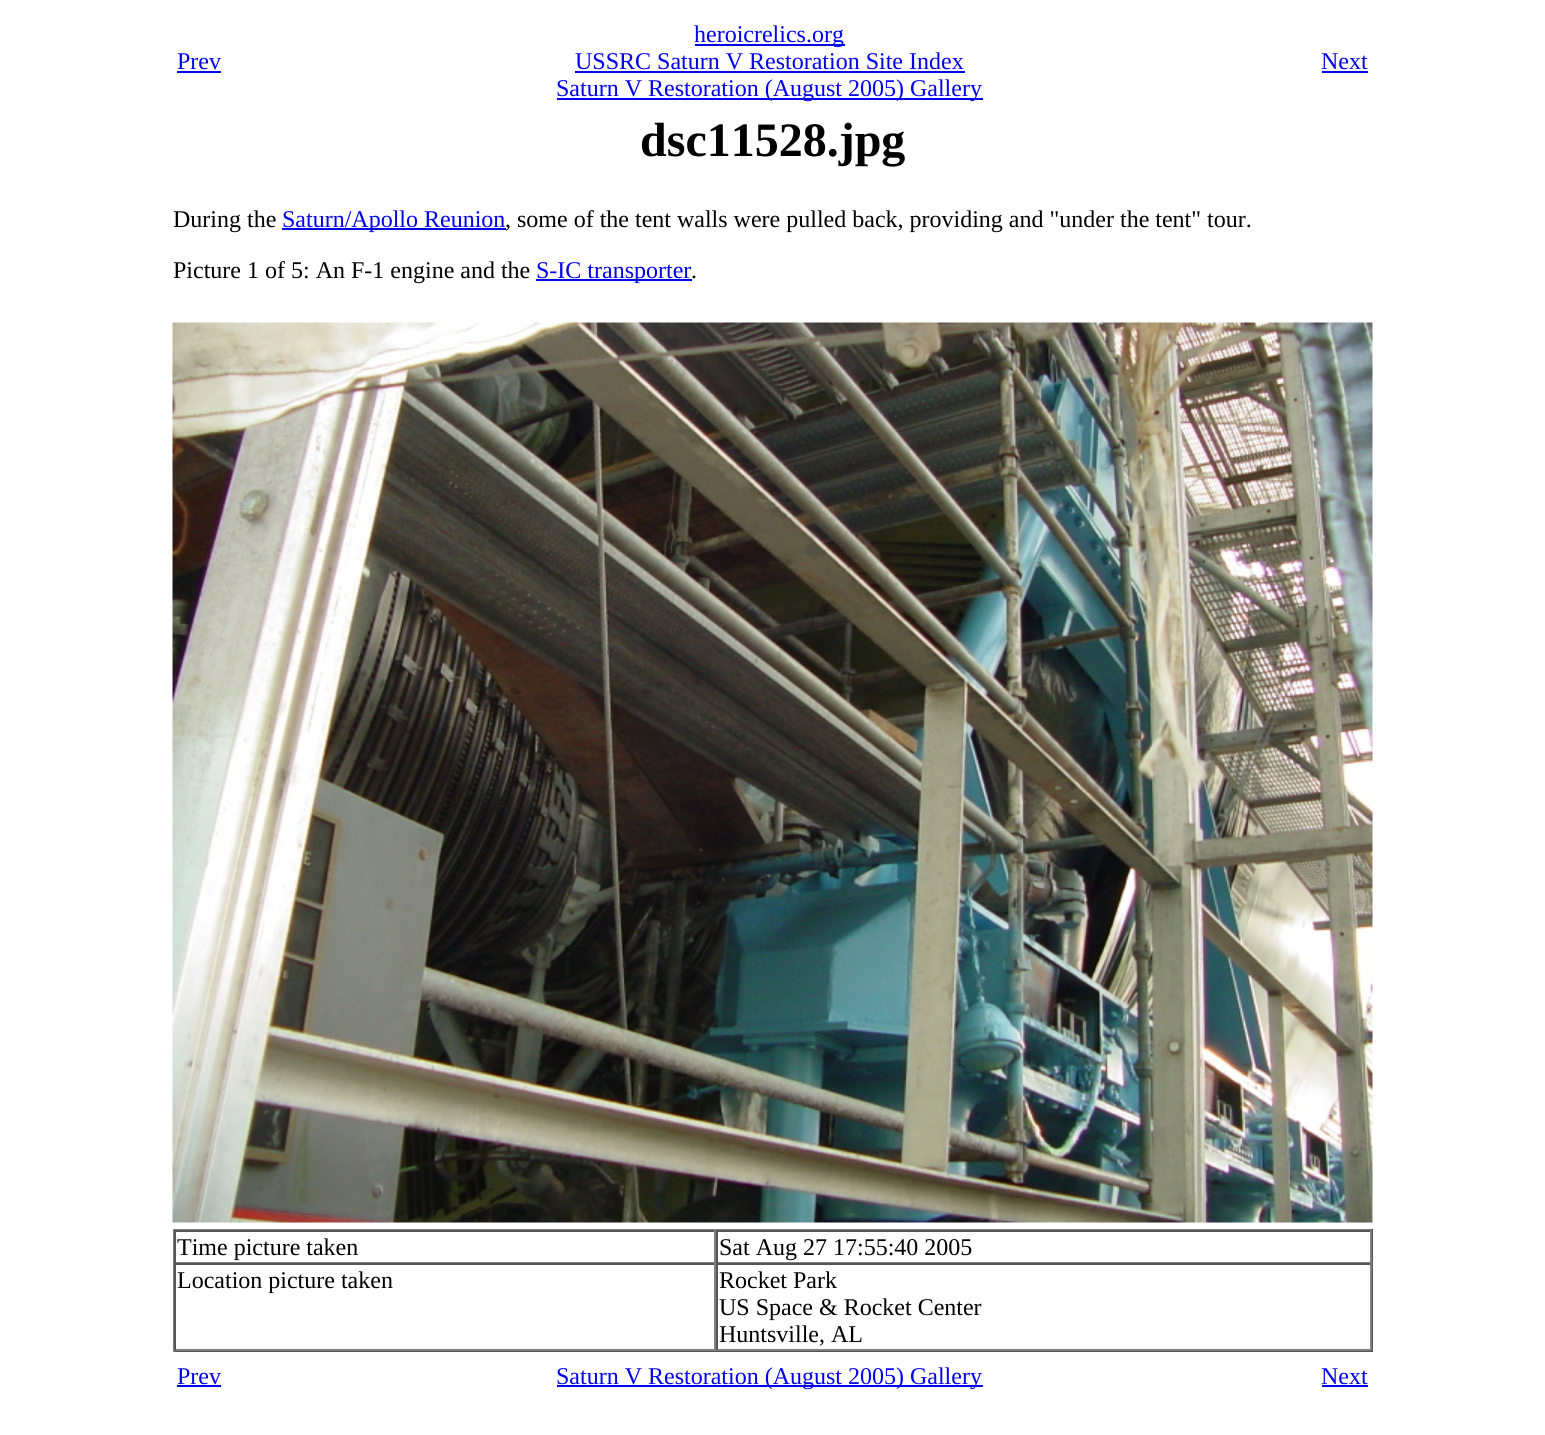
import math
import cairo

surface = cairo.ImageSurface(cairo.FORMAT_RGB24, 1545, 1435)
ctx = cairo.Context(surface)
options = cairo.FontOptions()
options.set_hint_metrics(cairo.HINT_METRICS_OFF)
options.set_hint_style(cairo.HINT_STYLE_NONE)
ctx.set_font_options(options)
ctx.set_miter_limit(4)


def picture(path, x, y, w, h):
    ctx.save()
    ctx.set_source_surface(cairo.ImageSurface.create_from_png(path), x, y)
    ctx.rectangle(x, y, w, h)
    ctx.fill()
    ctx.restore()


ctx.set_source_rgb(1, 1, 1)
ctx.paint()
ctx.select_font_face("Liberation Serif")
ctx.set_font_size(24)
ctx.set_source_rgb(0, 0, 0.933)
ctx.move_to(177, 69)
ctx.show_text("Prev")
ctx.rectangle(177, 71, 44, 2)
ctx.fill()
ctx.rectangle(695, 44, 150, 2)
ctx.fill()
ctx.move_to(694, 42)
ctx.show_text("heroicrelics.org")
ctx.move_to(575, 69)
ctx.show_text("USSRC Saturn V Restoration Site Index")
ctx.rectangle(575, 71, 390, 2)
ctx.fill()
ctx.rectangle(557, 98, 426, 2)
ctx.fill()
ctx.move_to(556, 96)
ctx.show_text("Saturn V Restoration (August 2005) Gallery")
ctx.move_to(1321, 69)
ctx.show_text("Next")
ctx.rectangle(1322, 71, 46, 2)
ctx.fill()
ctx.select_font_face("Liberation Serif", cairo.FONT_SLANT_NORMAL, cairo.FONT_WEIGHT_BOLD)
ctx.set_font_size(48)
ctx.set_source_rgb(0, 0, 0)
ctx.move_to(640, 156)
ctx.show_text("dsc11528.jpg")
ctx.select_font_face("Liberation Serif")
ctx.set_font_size(24)
ctx.move_to(173, 227)
ctx.show_text("During the")
ctx.set_source_rgb(0, 0, 0.933)
ctx.rectangle(282, 228, 224, 2)
ctx.fill()
ctx.move_to(282, 227)
ctx.show_text("Saturn/Apollo Reunion")
ctx.set_source_rgb(0, 0, 0)
ctx.move_to(505, 227)
ctx.show_text(", some of the tent walls were pulled back, providing and \"under the tent\" tour.")
ctx.move_to(173, 278)
ctx.show_text("Picture 1 of 5: An F-1 engine and the")
ctx.set_source_rgb(0, 0, 0.933)
ctx.rectangle(536, 279, 156, 2)
ctx.fill()
ctx.move_to(536, 278)
ctx.show_text("S-IC transporter")
ctx.set_source_rgb(0, 0, 0)
ctx.move_to(691, 278)
ctx.show_text(".")
picture("img1.png", 172, 322, 1201, 901)
ctx.set_source_rgb(0.502, 0.502, 0.502)
ctx.rectangle(173, 1229, 1200, 1)
ctx.fill()
ctx.set_source_rgb(0.333, 0.333, 0.333)
ctx.rectangle(1371, 1229, 2, 123)
ctx.fill()
ctx.rectangle(173, 1350, 1200, 2)
ctx.fill()
ctx.set_source_rgb(0.502, 0.502, 0.502)
ctx.rectangle(173, 1229, 2, 123)
ctx.fill()
ctx.set_source_rgb(0.333, 0.333, 0.333)
ctx.rectangle(174, 1230, 1197, 2)
ctx.fill()
ctx.set_source_rgb(0.502, 0.502, 0.502)
ctx.rectangle(714, 1230, 2, 33)
ctx.fill()
ctx.rectangle(174, 1262, 542, 1)
ctx.fill()
ctx.set_source_rgb(0.333, 0.333, 0.333)
ctx.rectangle(174, 1230, 2, 33)
ctx.fill()
ctx.set_source_rgb(0, 0, 0)
ctx.move_to(177, 1255)
ctx.show_text("Time picture taken")
ctx.set_source_rgb(0.502, 0.502, 0.502)
ctx.rectangle(1370, 1230, 2, 33)
ctx.fill()
ctx.rectangle(716, 1262, 655, 1)
ctx.fill()
ctx.set_source_rgb(0.333, 0.333, 0.333)
ctx.rectangle(716, 1230, 2, 33)
ctx.fill()
ctx.set_source_rgb(0, 0, 0)
ctx.move_to(719, 1255)
ctx.show_text("Sat Aug 27 17:55:40 2005")
ctx.set_source_rgb(0.333, 0.333, 0.333)
ctx.rectangle(174, 1263, 1197, 2)
ctx.fill()
ctx.set_source_rgb(0.502, 0.502, 0.502)
ctx.rectangle(714, 1263, 2, 87)
ctx.fill()
ctx.rectangle(174, 1349, 542, 2)
ctx.fill()
ctx.set_source_rgb(0.333, 0.333, 0.333)
ctx.rectangle(174, 1263, 2, 87)
ctx.fill()
ctx.set_source_rgb(0, 0, 0)
ctx.move_to(177, 1288)
ctx.show_text("Location picture taken")
ctx.set_source_rgb(0.502, 0.502, 0.502)
ctx.rectangle(1370, 1263, 2, 87)
ctx.fill()
ctx.rectangle(716, 1349, 655, 2)
ctx.fill()
ctx.set_source_rgb(0.333, 0.333, 0.333)
ctx.rectangle(716, 1263, 2, 87)
ctx.fill()
ctx.set_source_rgb(0, 0, 0)
ctx.move_to(719, 1288)
ctx.show_text("Rocket Park")
ctx.move_to(719, 1315)
ctx.show_text("US Space & Rocket Center")
ctx.move_to(719, 1342)
ctx.show_text("Huntsville, AL")
ctx.set_source_rgb(0, 0, 0.933)
ctx.move_to(177, 1384)
ctx.show_text("Prev")
ctx.rectangle(177, 1385, 44, 2)
ctx.fill()
ctx.rectangle(557, 1385, 426, 2)
ctx.fill()
ctx.move_to(556, 1384)
ctx.show_text("Saturn V Restoration (August 2005) Gallery")
ctx.move_to(1321, 1384)
ctx.show_text("Next")
ctx.rectangle(1322, 1385, 46, 2)
ctx.fill()
surface.write_to_png("page.png")
